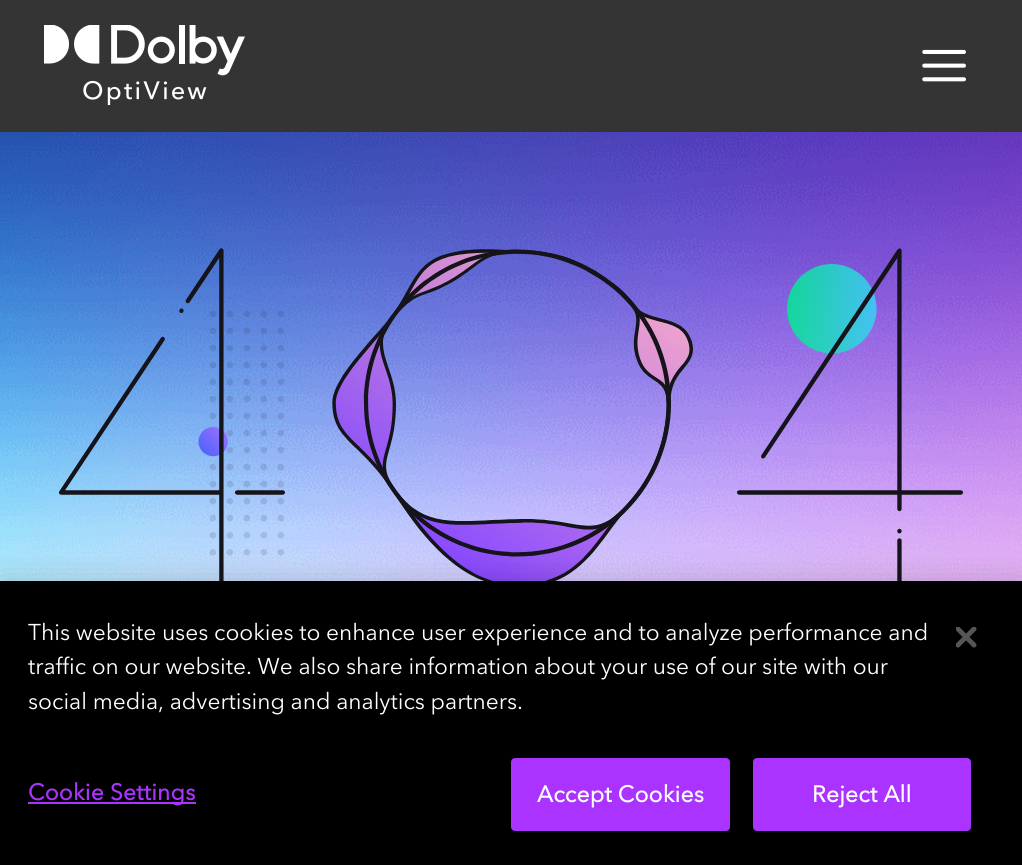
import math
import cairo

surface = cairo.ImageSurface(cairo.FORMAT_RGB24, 1022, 865)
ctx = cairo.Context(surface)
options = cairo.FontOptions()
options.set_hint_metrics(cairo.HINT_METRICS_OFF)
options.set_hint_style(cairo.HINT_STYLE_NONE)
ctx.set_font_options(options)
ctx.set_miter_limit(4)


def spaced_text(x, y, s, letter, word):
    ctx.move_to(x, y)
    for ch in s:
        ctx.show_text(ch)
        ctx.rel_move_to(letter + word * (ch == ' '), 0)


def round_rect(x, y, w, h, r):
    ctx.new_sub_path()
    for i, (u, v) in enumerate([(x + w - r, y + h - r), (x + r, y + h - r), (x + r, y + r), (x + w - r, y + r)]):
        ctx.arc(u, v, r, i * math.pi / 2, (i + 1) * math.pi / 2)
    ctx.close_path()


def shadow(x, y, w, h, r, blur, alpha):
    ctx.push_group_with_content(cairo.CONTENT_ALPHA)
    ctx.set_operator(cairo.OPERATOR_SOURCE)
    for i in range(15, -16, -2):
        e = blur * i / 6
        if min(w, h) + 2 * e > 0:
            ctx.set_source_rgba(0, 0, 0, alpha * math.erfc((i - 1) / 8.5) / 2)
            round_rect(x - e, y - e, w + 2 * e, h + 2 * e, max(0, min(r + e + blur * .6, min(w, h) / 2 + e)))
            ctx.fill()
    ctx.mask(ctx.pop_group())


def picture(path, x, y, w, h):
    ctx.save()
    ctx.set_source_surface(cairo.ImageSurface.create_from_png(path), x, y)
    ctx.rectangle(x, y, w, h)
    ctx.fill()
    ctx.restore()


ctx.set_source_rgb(1, 1, 1)
ctx.paint()
ctx.set_source_rgb(0.208, 0.204, 0.204)
ctx.rectangle(0, 0, 1022, 132)
ctx.fill()
picture("img1.png", 44, 25, 201, 80)
picture("img2.png", 922, 49, 44, 33)
picture("img3.png", 0, 132, 1022, 449)
picture("img4.png", 59, 248, 904, 333)
ctx.set_source_rgb(0, 0, 0)
shadow(0, 581, 1022, 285, 0, 16, 0.2)
ctx.set_source_rgb(0, 0, 0)
ctx.rectangle(0, 581, 1022, 284)
ctx.fill()
ctx.select_font_face("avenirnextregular")
ctx.set_font_size(22.75)
ctx.set_source_rgb(1, 1, 1)
ctx.move_to(28, 640)
ctx.show_text("This website uses cookies to enhance user experience and to analyze performance and")
ctx.move_to(28, 674)
ctx.show_text("traffic on our website. We also share information about your use of our site with our")
ctx.move_to(28, 709)
ctx.show_text("social media, advertising and analytics partners.")
ctx.set_source_rgb(0.667, 0.2, 1)
ctx.rectangle(28, 802, 168, 2)
ctx.fill()
ctx.select_font_face("avenirnextregular", cairo.FONT_SLANT_NORMAL, cairo.FONT_WEIGHT_BOLD)
spaced_text(28, 800, "Cookie Settings", 0.25, 0)
round_rect(512, 759, 217, 71, 3)
ctx.fill_preserve()
ctx.stroke()
ctx.set_source_rgb(1, 1, 1)
spaced_text(537, 802, "Accept Cookies", 0.25, 0)
ctx.set_source_rgb(0.667, 0.2, 1)
round_rect(754, 759, 216, 71, 3)
ctx.fill_preserve()
ctx.stroke()
ctx.set_source_rgb(1, 1, 1)
spaced_text(812, 802, "Reject All", 0.25, 0)
picture("img5.png", 956, 627, 21, 21)
surface.write_to_png("page.png")
